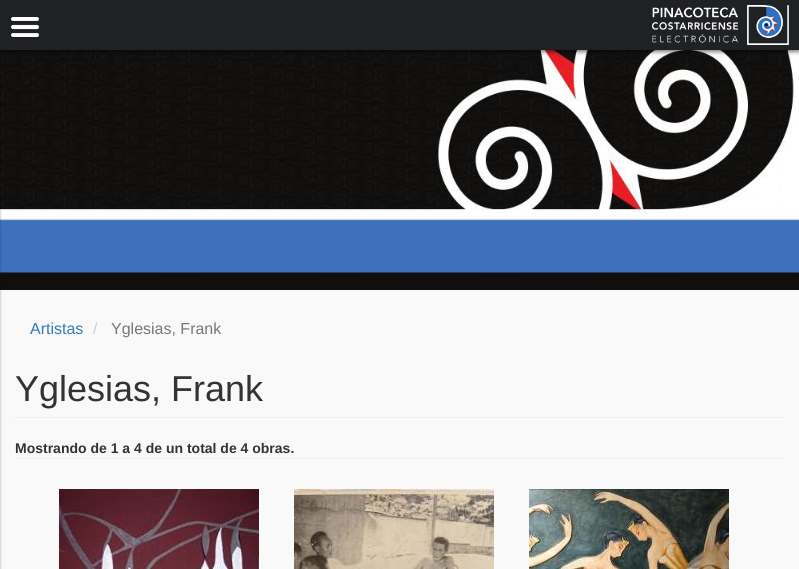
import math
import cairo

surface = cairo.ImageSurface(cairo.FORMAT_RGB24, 799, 569)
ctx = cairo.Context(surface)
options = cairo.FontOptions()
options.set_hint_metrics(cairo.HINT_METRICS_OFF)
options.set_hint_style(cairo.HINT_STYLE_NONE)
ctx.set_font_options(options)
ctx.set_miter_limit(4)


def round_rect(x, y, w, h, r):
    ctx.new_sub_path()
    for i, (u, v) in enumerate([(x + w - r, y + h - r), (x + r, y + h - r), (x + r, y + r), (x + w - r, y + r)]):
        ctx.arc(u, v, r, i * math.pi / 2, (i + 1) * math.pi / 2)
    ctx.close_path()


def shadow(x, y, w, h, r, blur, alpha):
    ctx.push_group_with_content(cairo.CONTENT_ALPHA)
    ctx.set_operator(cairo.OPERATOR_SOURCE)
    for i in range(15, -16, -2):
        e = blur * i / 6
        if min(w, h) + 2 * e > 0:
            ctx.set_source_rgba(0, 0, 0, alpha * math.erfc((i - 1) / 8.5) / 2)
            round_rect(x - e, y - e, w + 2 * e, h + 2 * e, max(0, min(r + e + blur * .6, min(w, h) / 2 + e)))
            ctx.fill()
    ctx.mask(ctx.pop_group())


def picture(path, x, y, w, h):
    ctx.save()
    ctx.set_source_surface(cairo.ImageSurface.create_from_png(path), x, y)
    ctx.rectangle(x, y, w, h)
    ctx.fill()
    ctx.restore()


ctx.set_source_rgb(0.976, 0.976, 0.976)
ctx.paint()
picture("img3.png", 0, 50, 799, 240)
ctx.set_source_rgb(0, 0, 0)
shadow(-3, 1, 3, 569, 0, 1, 0.24)
shadow(-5, 1, 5, 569, 0, 1.5, 0.12)
shadow(0, 2, 799, 50, 0, 2, 0.5)
ctx.set_source_rgb(0.125, 0.129, 0.141)
ctx.rectangle(0, 0, 799, 50)
ctx.fill()
picture("img1.png", 11, 17, 28, 20)
picture("img2.png", 652, 5, 137, 40)
ctx.select_font_face("Liberation Sans")
ctx.set_font_size(16)
ctx.set_source_rgb(0.2, 0.478, 0.718)
ctx.move_to(30, 334)
ctx.show_text("Artistas")
ctx.set_source_rgb(0.8, 0.8, 0.8)
ctx.move_to(93, 334)
ctx.show_text("/")
ctx.set_source_rgb(0.467, 0.467, 0.467)
ctx.move_to(111, 334)
ctx.show_text("Yglesias, Frank")
ctx.set_source_rgb(0.933, 0.933, 0.933)
ctx.rectangle(15, 417, 769, 1)
ctx.fill()
ctx.set_font_size(36)
ctx.set_source_rgb(0.2, 0.2, 0.2)
ctx.move_to(15, 401)
ctx.show_text("Yglesias, Frank")
ctx.set_source_rgb(0.941, 0.941, 0.941)
ctx.rectangle(15, 458, 769, 1)
ctx.fill()
ctx.select_font_face("Liberation Sans", cairo.FONT_SLANT_NORMAL, cairo.FONT_WEIGHT_BOLD)
ctx.set_font_size(14)
ctx.set_source_rgb(0.2, 0.2, 0.2)
ctx.move_to(15, 453)
ctx.show_text("Mostrando de 1 a 4 de un total de 4 obras.")
picture("img4.png", 59, 489, 200, 80)
picture("img5.png", 294, 489, 200, 80)
picture("img6.png", 529, 489, 200, 80)
surface.write_to_png("page.png")
